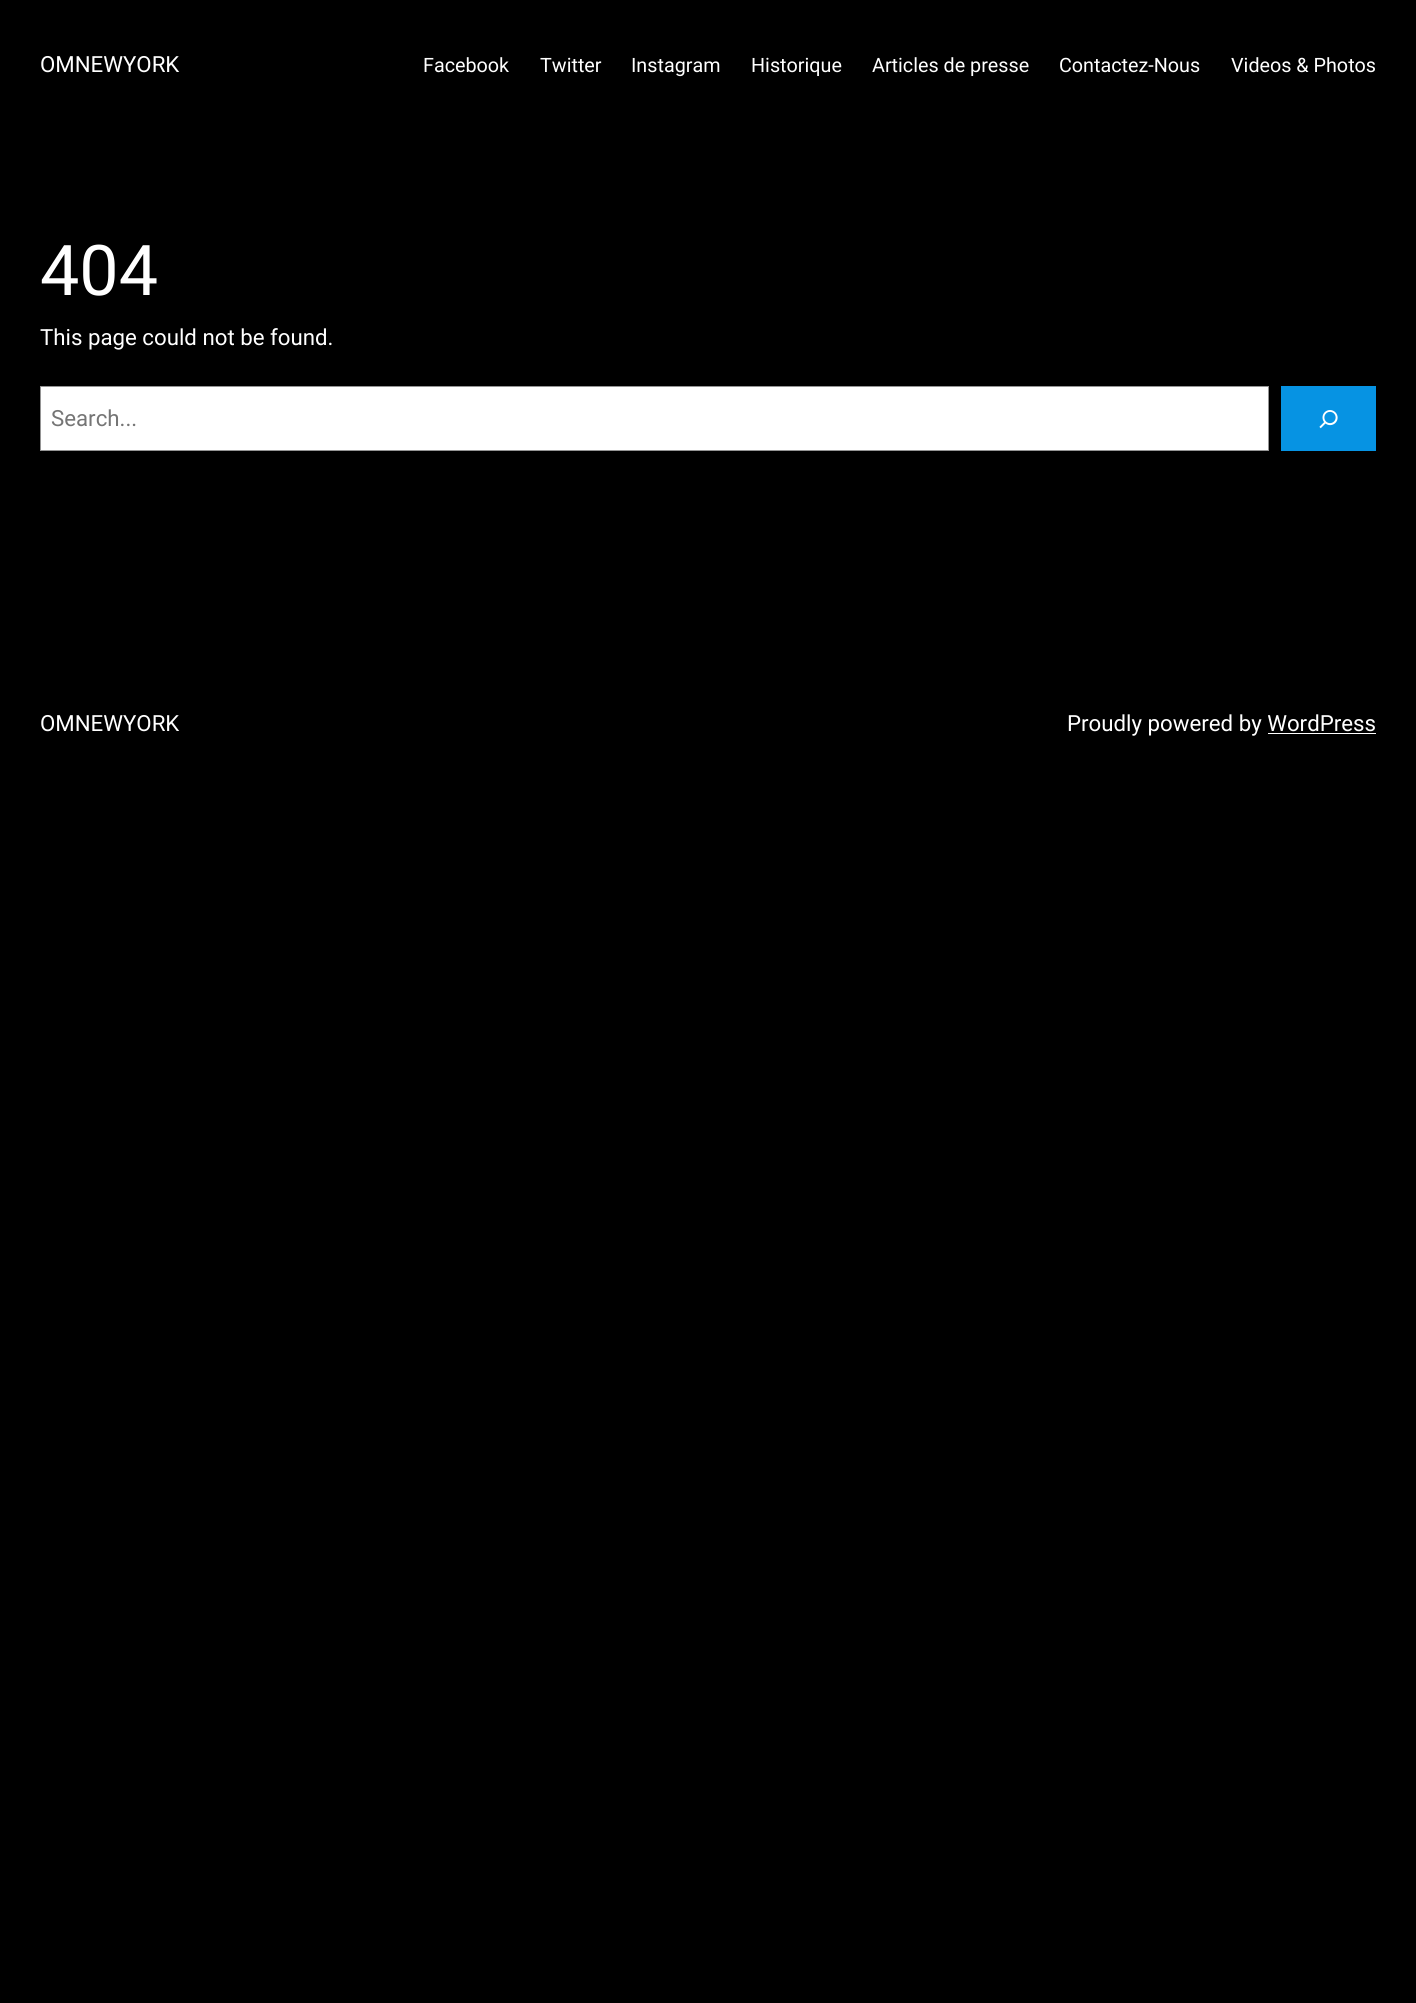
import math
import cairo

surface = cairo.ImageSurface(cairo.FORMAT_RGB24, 1416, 2003)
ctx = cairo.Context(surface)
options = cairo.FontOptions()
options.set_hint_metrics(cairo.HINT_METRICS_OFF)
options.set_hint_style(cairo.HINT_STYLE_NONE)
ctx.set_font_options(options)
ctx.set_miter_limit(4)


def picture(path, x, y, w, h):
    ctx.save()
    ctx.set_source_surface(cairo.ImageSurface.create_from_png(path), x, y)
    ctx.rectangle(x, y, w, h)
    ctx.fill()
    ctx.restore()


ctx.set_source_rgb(0, 0, 0)
ctx.paint()
ctx.select_font_face("Roboto")
ctx.set_font_size(22.25)
ctx.set_source_rgb(1, 1, 1)
ctx.move_to(40, 72)
ctx.show_text("OMNEWYORK")
ctx.set_font_size(19.75)
ctx.move_to(423, 72)
ctx.show_text("Facebook")
ctx.move_to(540, 72)
ctx.show_text("Twitter")
ctx.move_to(631, 72)
ctx.show_text("Instagram")
ctx.move_to(751, 72)
ctx.show_text("Historique")
ctx.move_to(872, 72)
ctx.show_text("Articles de presse")
ctx.move_to(1059, 72)
ctx.show_text("Contactez-Nous")
ctx.move_to(1231, 72)
ctx.show_text("Videos & Photos")
ctx.set_font_size(70)
ctx.move_to(40, 295)
ctx.show_text("404")
ctx.set_font_size(22.25)
ctx.move_to(40, 345)
ctx.show_text("This page could not be found.")
ctx.rectangle(40.5, 386.5, 1228, 64)
ctx.fill_preserve()
ctx.set_source_rgb(0.58, 0.58, 0.58)
ctx.set_line_width(1)
ctx.stroke()
ctx.set_source_rgb(0.459, 0.459, 0.459)
ctx.move_to(51, 426)
ctx.show_text("Search...")
ctx.set_source_rgb(0.024, 0.576, 0.89)
ctx.rectangle(1281, 386, 95, 65)
ctx.fill()
picture("img1.png", 1319, 410, 19, 19)
ctx.set_source_rgb(1, 1, 1)
ctx.move_to(40, 731)
ctx.show_text("OMNEWYORK")
ctx.move_to(1067, 731)
ctx.show_text("Proudly powered by WordPress")
ctx.rectangle(1268, 733, 108, 1)
ctx.fill()
surface.write_to_png("page.png")
